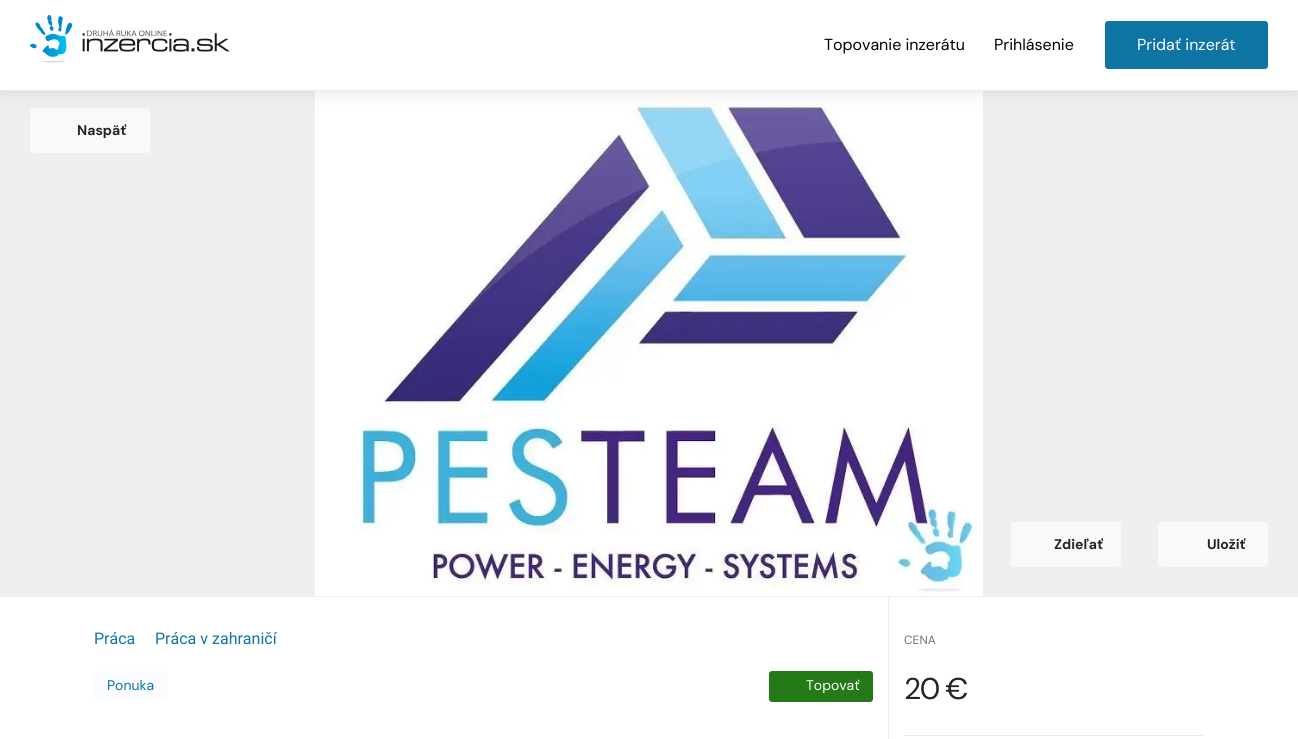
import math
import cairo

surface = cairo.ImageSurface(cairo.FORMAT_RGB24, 1298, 739)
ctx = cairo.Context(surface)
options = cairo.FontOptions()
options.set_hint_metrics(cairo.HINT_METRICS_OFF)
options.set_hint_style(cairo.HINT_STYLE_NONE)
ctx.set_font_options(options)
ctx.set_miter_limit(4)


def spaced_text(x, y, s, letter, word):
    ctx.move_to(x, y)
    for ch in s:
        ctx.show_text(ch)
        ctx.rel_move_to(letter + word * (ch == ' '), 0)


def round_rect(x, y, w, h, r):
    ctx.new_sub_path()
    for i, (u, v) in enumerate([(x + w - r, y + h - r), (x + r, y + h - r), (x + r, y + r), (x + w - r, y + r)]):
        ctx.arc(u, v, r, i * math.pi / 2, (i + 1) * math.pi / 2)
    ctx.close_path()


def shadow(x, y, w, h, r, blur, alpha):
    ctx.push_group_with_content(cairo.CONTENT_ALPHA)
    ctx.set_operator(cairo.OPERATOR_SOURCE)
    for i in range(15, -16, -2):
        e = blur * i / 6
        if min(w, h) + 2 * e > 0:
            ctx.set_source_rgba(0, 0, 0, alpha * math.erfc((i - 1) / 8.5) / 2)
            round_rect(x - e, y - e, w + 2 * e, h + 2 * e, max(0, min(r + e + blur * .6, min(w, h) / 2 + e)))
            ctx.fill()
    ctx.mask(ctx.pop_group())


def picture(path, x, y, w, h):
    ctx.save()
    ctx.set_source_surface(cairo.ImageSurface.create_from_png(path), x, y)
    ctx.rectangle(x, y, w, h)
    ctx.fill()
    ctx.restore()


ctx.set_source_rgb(1, 1, 1)
ctx.paint()
ctx.set_source_rgb(0.937, 0.937, 0.937)
ctx.rectangle(0, 91, 1298, 506)
ctx.fill()
picture("img2.png", 315, 91, 668, 505)
ctx.set_source_rgb(0.973, 0.976, 0.98)
round_rect(31, 109, 118, 43, 2)
ctx.fill_preserve()
ctx.stroke()
ctx.set_source_rgb(0.443, 0.443, 0.443)
shadow(0, 0, 1298, 91, 0, 10, 0.2)
ctx.set_source_rgb(1, 1, 1)
ctx.rectangle(0, 0, 1298, 90)
ctx.fill()
ctx.set_source_rgb(0.922, 0.922, 0.922)
ctx.rectangle(0, 90, 1298, 1)
ctx.fill()
picture("img1.png", 30, 15, 200, 48)
ctx.select_font_face("DM Sans")
ctx.set_font_size(16)
ctx.set_source_rgb(0, 0, 0)
ctx.move_to(824, 50)
ctx.show_text("Topovanie inzerátu")
ctx.move_to(994, 50)
ctx.show_text("Prihlásenie")
ctx.set_source_rgb(0.055, 0.455, 0.643)
round_rect(1106, 22, 161, 46, 2)
ctx.fill_preserve()
ctx.stroke()
ctx.set_source_rgb(1, 1, 1)
ctx.move_to(1137, 50)
ctx.show_text("Pridať inzerát")
ctx.select_font_face("DM Sans", cairo.FONT_SLANT_NORMAL, cairo.FONT_WEIGHT_BOLD)
ctx.set_font_size(14)
ctx.set_source_rgb(0.129, 0.145, 0.161)
ctx.move_to(77, 135)
ctx.show_text("Naspäť")
ctx.set_source_rgb(0.973, 0.976, 0.98)
round_rect(1012, 523, 108, 43, 2)
ctx.fill_preserve()
ctx.stroke()
ctx.set_source_rgb(0.129, 0.145, 0.161)
ctx.move_to(1054, 549)
ctx.show_text("Zdieľať")
ctx.set_source_rgb(0.973, 0.976, 0.98)
round_rect(1159, 523, 108, 43, 2)
ctx.fill_preserve()
ctx.stroke()
ctx.set_source_rgb(0.129, 0.145, 0.161)
ctx.move_to(1207, 549)
ctx.show_text("Uložiť")
ctx.set_source_rgb(0.922, 0.922, 0.922)
ctx.rectangle(888, 597, 1, 142)
ctx.fill()
ctx.select_font_face("Roboto")
ctx.set_font_size(16)
ctx.set_source_rgb(0.055, 0.455, 0.643)
ctx.move_to(94, 644)
ctx.show_text("Práca")
ctx.move_to(155, 644)
ctx.show_text("Práca v zahraničí")
ctx.set_source_rgb(0.98, 0.988, 1)
round_rect(94, 671, 73, 31, 3)
ctx.fill()
ctx.select_font_face("DM Sans")
ctx.set_font_size(14)
ctx.set_source_rgb(0.055, 0.455, 0.643)
ctx.move_to(107, 690)
ctx.show_text("Ponuka")
ctx.set_source_rgb(0.137, 0.478, 0.086)
round_rect(769, 671, 104, 31, 3)
ctx.fill()
ctx.set_source_rgb(1, 1, 1)
ctx.move_to(806, 690)
ctx.show_text("Topovať")
ctx.set_font_size(12)
ctx.set_source_rgb(0.443, 0.443, 0.443)
ctx.move_to(904, 644)
ctx.show_text("CENA")
ctx.set_font_size(30)
ctx.set_source_rgb(0.129, 0.145, 0.161)
spaced_text(904, 699, "20 €", -1.5, 0)
ctx.set_source_rgb(0.922, 0.922, 0.922)
ctx.rectangle(904, 735, 300, 1)
ctx.fill()
surface.write_to_png("page.png")
